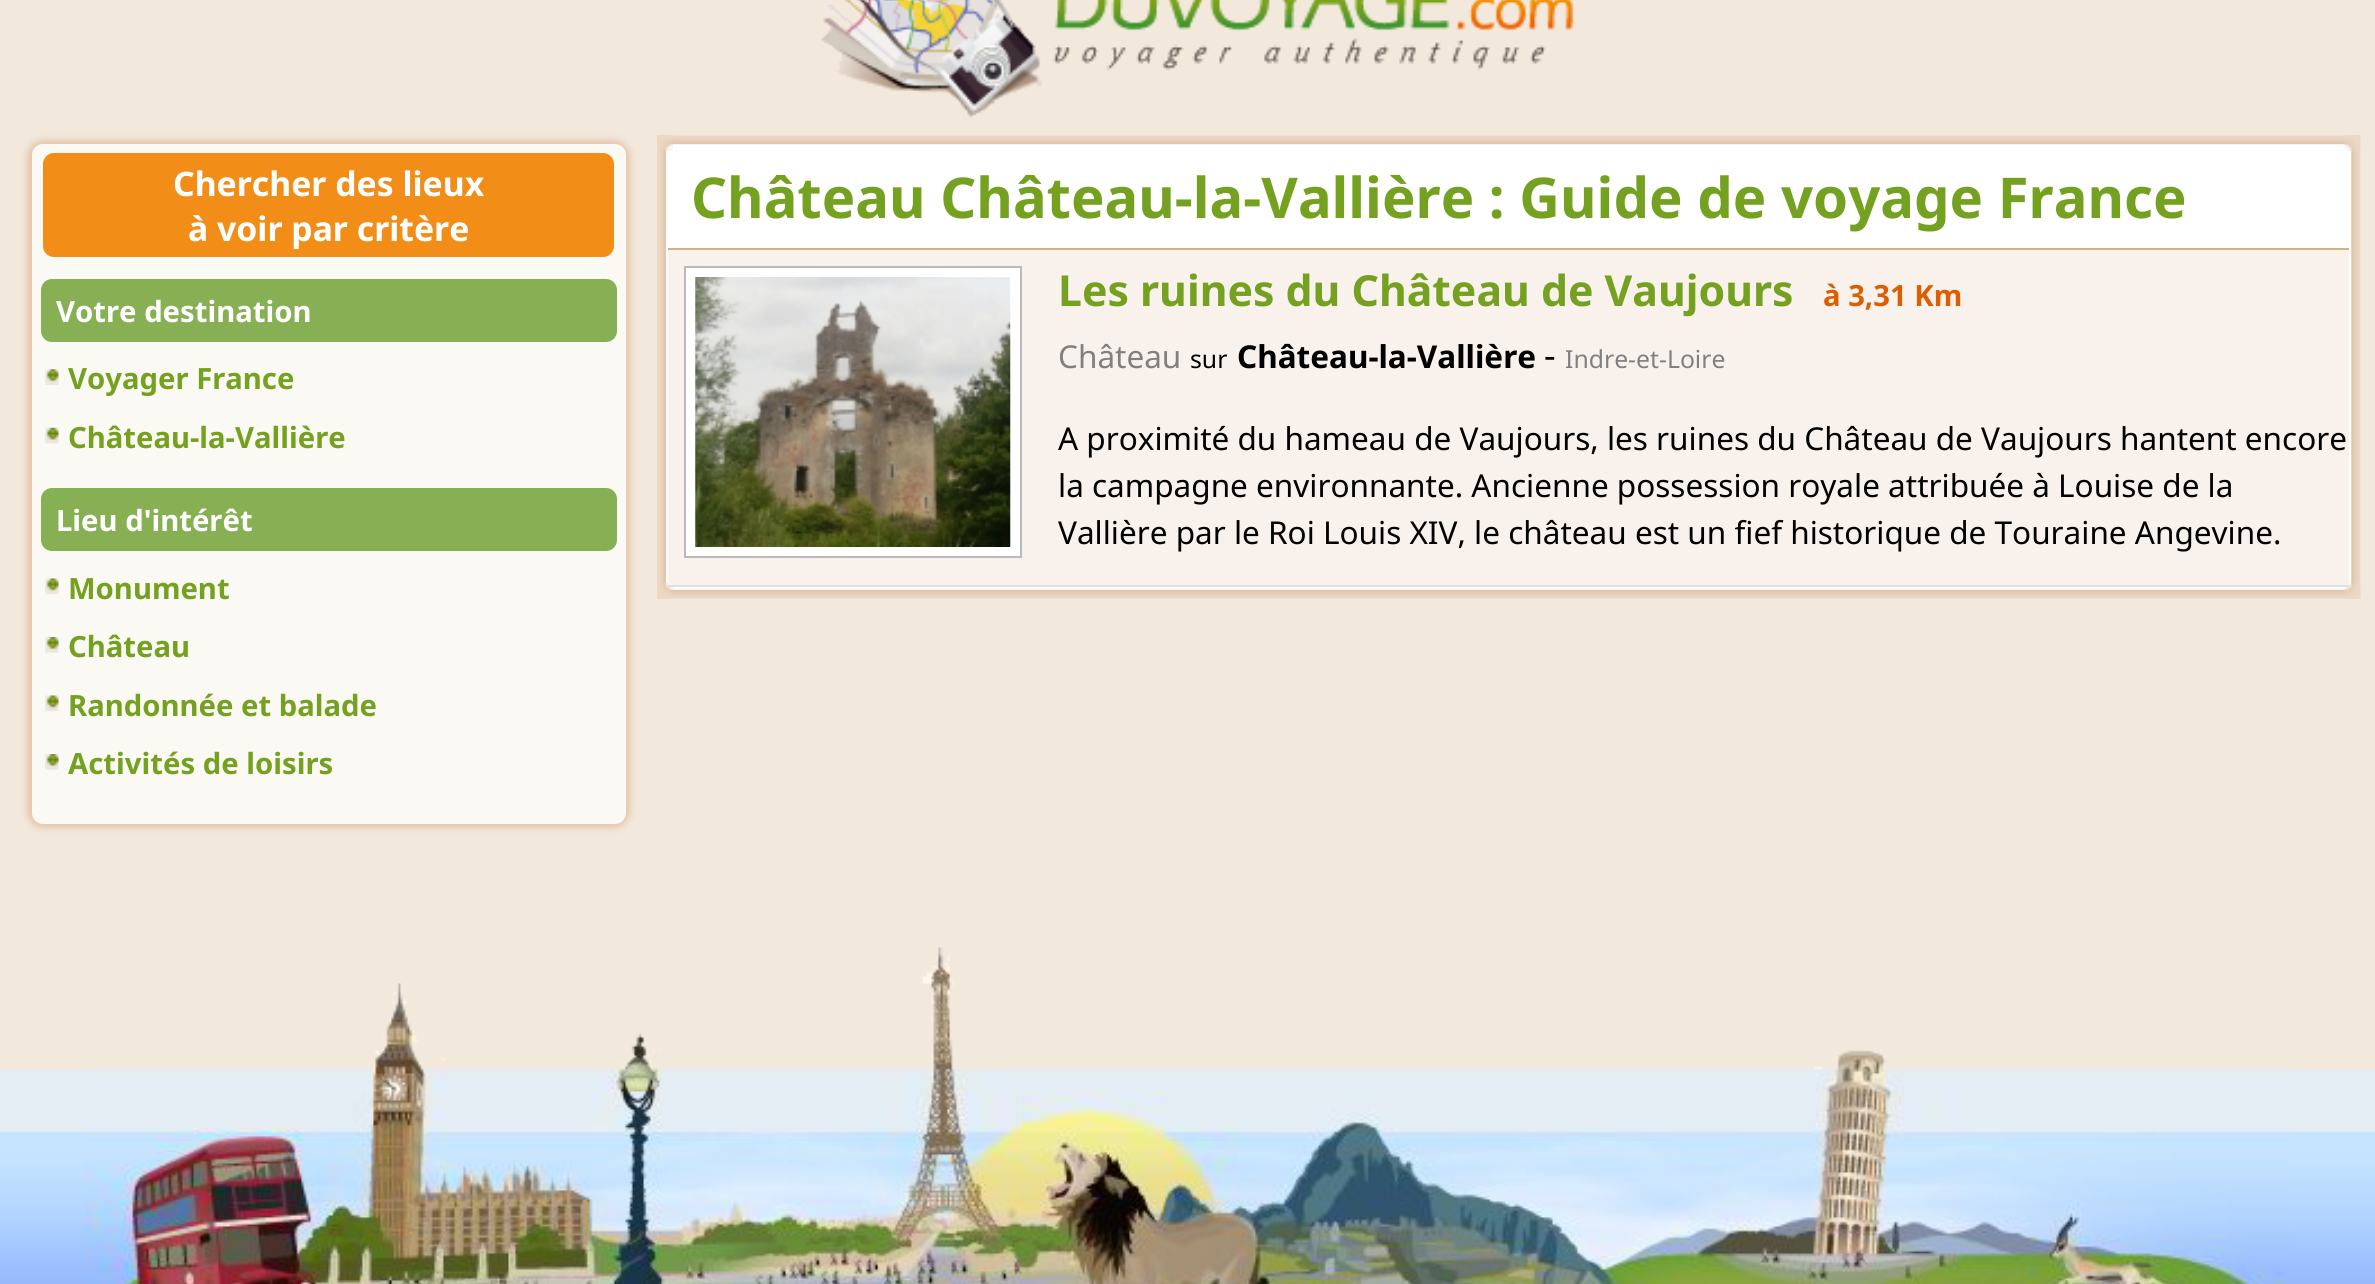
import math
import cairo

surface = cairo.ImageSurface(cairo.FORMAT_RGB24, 2375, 1284)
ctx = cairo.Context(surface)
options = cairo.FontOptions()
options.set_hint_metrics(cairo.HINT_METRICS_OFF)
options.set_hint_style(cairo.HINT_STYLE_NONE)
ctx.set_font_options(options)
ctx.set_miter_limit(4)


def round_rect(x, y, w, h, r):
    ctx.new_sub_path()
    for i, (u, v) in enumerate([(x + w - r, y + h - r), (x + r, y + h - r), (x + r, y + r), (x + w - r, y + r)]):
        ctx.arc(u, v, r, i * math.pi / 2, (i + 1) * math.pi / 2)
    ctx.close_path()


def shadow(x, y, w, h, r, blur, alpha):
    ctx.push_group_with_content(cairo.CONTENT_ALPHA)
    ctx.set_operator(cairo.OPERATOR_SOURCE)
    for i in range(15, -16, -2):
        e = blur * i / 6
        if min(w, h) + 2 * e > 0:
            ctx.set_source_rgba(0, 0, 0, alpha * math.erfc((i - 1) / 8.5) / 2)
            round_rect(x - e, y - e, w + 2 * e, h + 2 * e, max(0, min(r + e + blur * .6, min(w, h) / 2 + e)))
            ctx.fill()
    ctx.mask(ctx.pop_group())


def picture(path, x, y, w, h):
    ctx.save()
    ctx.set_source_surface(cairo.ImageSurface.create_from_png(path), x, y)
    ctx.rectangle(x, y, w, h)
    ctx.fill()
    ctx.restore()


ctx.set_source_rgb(0.953, 0.91, 0.863)
ctx.paint()
picture("img1.png", 821, 0, 753, 118)
ctx.set_source_rgb(0.89, 0.776, 0.667)
shadow(27, 140, 603, 688, 16, 3.5, 1)
ctx.set_source_rgb(0.98, 0.973, 0.957)
round_rect(32, 144, 594, 680, 11)
ctx.fill()
ctx.set_source_rgb(0.949, 0.553, 0.094)
round_rect(43, 153, 571, 104, 11)
ctx.fill()
ctx.select_font_face("Noto Sans", cairo.FONT_SLANT_NORMAL, cairo.FONT_WEIGHT_BOLD)
ctx.set_font_size(33.75)
ctx.set_source_rgb(1, 1, 1)
ctx.move_to(173, 196)
ctx.show_text("Chercher des lieux")
ctx.move_to(188, 241)
ctx.show_text("à voir par critère")
ctx.set_source_rgb(0.529, 0.686, 0.325)
round_rect(41, 279, 576, 63, 11)
ctx.fill()
ctx.set_font_size(29.25)
ctx.set_source_rgb(1, 1, 1)
ctx.move_to(56, 322)
ctx.show_text("Votre destination")
picture("img2.png", 45, 369, 14, 16)
ctx.set_source_rgb(0.459, 0.631, 0.125)
ctx.move_to(68, 389)
ctx.show_text("Voyager France")
picture("img3.png", 45, 427, 14, 17)
ctx.move_to(68, 448)
ctx.show_text("Château-la-Vallière")
ctx.set_source_rgb(0.529, 0.686, 0.325)
round_rect(41, 488, 576, 63, 11)
ctx.fill()
ctx.set_source_rgb(1, 1, 1)
ctx.move_to(56, 531)
ctx.show_text("Lieu d'intérêt")
picture("img4.png", 45, 578, 14, 17)
ctx.set_source_rgb(0.459, 0.631, 0.125)
ctx.move_to(68, 599)
ctx.show_text("Monument")
picture("img5.png", 45, 637, 14, 16)
ctx.move_to(68, 657)
ctx.show_text("Château")
picture("img6.png", 45, 695, 14, 17)
ctx.move_to(68, 716)
ctx.show_text("Randonnée et balade")
picture("img5.png", 45, 754, 14, 16)
ctx.move_to(68, 774)
ctx.show_text("Activités de loisirs")
ctx.set_source_rgb(1, 1, 1)
ctx.rectangle(657, 135, 1703, 464)
ctx.fill()
picture("img7.png", 657, 135, 1704, 10)
picture("img8.png", 657, 135, 9, 464)
picture("img9.png", 2351, 135, 10, 464)
picture("img10.png", 657, 589, 1704, 10)
picture("img11.png", 659, 135, 14, 16)
picture("img12.png", 2344, 135, 15, 16)
ctx.set_font_size(56.25)
ctx.set_source_rgb(0.459, 0.631, 0.125)
ctx.move_to(691, 218)
ctx.show_text("Château Château-la-Vallière : Guide de voyage France")
ctx.set_source_rgb(0.812, 0.698, 0.541)
ctx.rectangle(668, 248, 1681, 2)
ctx.fill()
picture("img14.png", 657, 583, 16, 16)
picture("img15.png", 2344, 583, 16, 16)
ctx.set_source_rgb(0.973, 0.949, 0.925)
ctx.rectangle(668, 250, 1681, 335)
ctx.fill()
ctx.set_source_rgb(0.886, 0.878, 0.871)
ctx.rectangle(668, 585, 1681, 2)
ctx.fill()
ctx.set_source_rgb(1, 1, 1)
ctx.rectangle(685, 267, 336, 290)
ctx.fill_preserve()
ctx.set_source_rgb(0.725, 0.725, 0.725)
ctx.stroke()
picture("img13.png", 695, 277, 316, 270)
ctx.set_font_size(42.75)
ctx.set_source_rgb(0.459, 0.631, 0.125)
ctx.move_to(1058, 306)
ctx.show_text("Les ruines du Château de Vaujours")
ctx.set_font_size(29.25)
ctx.set_source_rgb(0.863, 0.369, 0)
ctx.move_to(1823, 306)
ctx.show_text("à 3,31 Km")
ctx.select_font_face("Noto Sans")
ctx.set_font_size(31.5)
ctx.set_source_rgb(0.502, 0.502, 0.502)
ctx.move_to(1058, 368)
ctx.show_text("Château")
ctx.set_font_size(24.75)
ctx.set_source_rgb(0, 0, 0)
ctx.move_to(1190, 368)
ctx.show_text("sur")
ctx.select_font_face("Noto Sans", cairo.FONT_SLANT_NORMAL, cairo.FONT_WEIGHT_BOLD)
ctx.set_font_size(31.5)
ctx.move_to(1237, 368)
ctx.show_text("Château-la-Vallière")
ctx.select_font_face("Noto Sans")
ctx.set_font_size(36)
ctx.move_to(1544, 368)
ctx.show_text("-")
ctx.set_font_size(24.75)
ctx.set_source_rgb(0.502, 0.502, 0.502)
ctx.move_to(1565, 368)
ctx.show_text("Indre-et-Loire")
ctx.set_font_size(31.5)
ctx.set_source_rgb(0, 0, 0)
ctx.move_to(1058, 450)
ctx.show_text("A proximité du hameau de Vaujours, les ruines du Château de Vaujours hantent encore")
ctx.move_to(1058, 497)
ctx.show_text("la campagne environnante. Ancienne possession royale attribuée à Louise de la")
ctx.move_to(1058, 544)
ctx.show_text("Vallière par le Roi Louis XIV, le château est un fief historique de Touraine Angevine.")
picture("img16.png", 0, 1068, 2375, 216)
picture("img17.png", 85, 947, 2206, 337)
surface.write_to_png("page.png")
